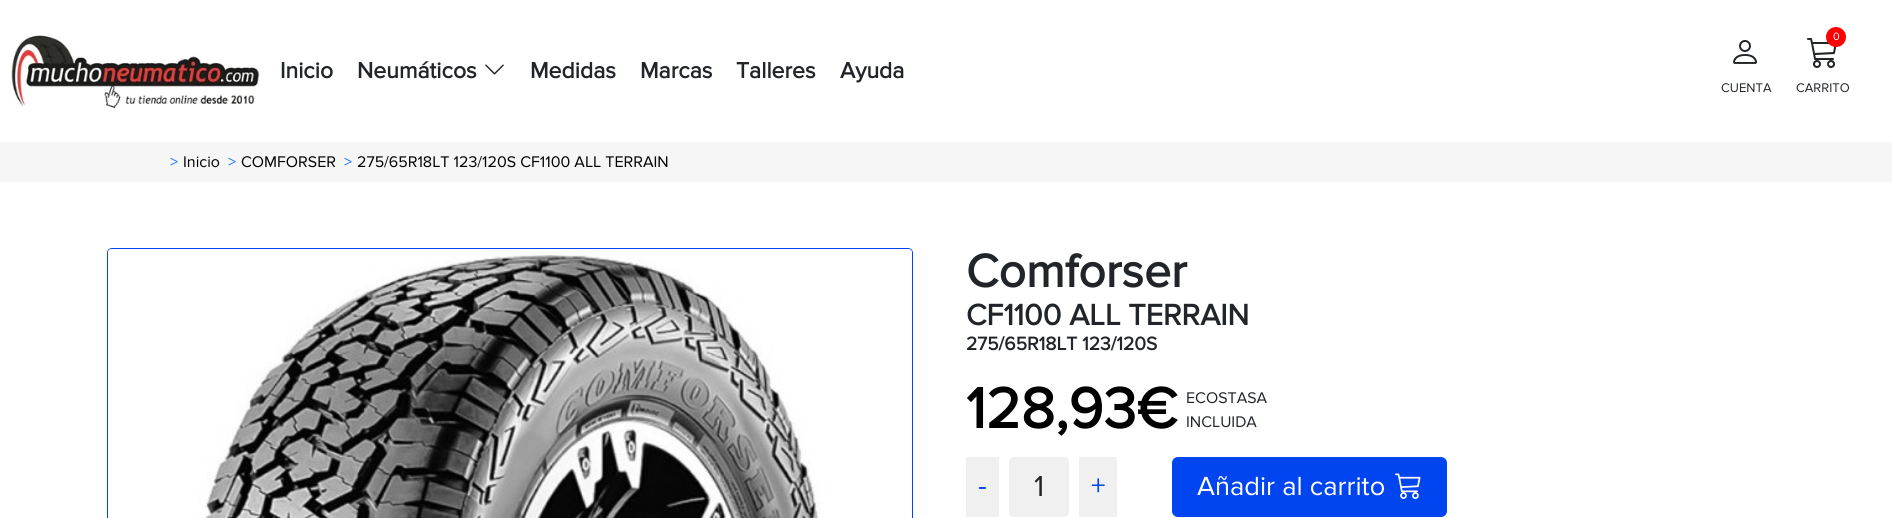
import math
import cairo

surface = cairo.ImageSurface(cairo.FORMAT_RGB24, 1892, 518)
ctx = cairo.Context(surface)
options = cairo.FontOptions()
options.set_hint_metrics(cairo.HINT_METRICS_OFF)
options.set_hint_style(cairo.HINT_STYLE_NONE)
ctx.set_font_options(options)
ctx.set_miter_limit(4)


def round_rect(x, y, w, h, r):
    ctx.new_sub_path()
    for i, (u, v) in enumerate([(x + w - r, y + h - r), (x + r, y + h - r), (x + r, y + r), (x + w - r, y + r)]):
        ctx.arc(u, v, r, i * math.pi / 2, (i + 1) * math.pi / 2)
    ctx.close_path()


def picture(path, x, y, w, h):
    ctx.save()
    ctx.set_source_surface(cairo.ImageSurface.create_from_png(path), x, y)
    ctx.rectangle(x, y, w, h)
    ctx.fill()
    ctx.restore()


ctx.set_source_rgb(1, 1, 1)
ctx.paint()
picture("img1.png", 10, 35, 250, 75)
ctx.select_font_face("Proxima Nova", cairo.FONT_SLANT_NORMAL, cairo.FONT_WEIGHT_BOLD)
ctx.set_font_size(23)
ctx.set_source_rgb(0.129, 0.145, 0.161)
ctx.move_to(280, 78)
ctx.show_text("Inicio")
ctx.move_to(357, 78)
ctx.show_text("Neumáticos")
picture("img2.png", 485, 64, 19, 11)
ctx.move_to(530, 78)
ctx.show_text("Medidas")
ctx.move_to(640, 78)
ctx.show_text("Marcas")
ctx.move_to(736, 78)
ctx.show_text("Talleres")
ctx.move_to(840, 78)
ctx.show_text("Ayuda")
picture("img3.png", 1733, 40, 24, 24)
ctx.select_font_face("Proxima Nova")
ctx.set_font_size(13)
ctx.move_to(1721, 92)
ctx.show_text("CUENTA")
picture("img4.png", 1807, 38, 30, 30)
ctx.set_source_rgb(1, 0, 0)
ctx.arc(1836, 37, 10, 0, 2 * math.pi)
ctx.fill()
ctx.set_font_size(11)
ctx.set_source_rgb(1, 1, 1)
ctx.move_to(1833, 40)
ctx.show_text("0")
ctx.set_font_size(13)
ctx.set_source_rgb(0.129, 0.145, 0.161)
ctx.move_to(1796, 92)
ctx.show_text("CARRITO")
ctx.set_source_rgb(0.961, 0.961, 0.961)
ctx.rectangle(0, 142, 1892, 40)
ctx.fill()
ctx.set_font_size(16)
ctx.set_source_rgb(0.051, 0.431, 0.992)
ctx.move_to(170, 167)
ctx.show_text(">")
ctx.set_source_rgb(0, 0, 0)
ctx.move_to(183, 167)
ctx.show_text("Inicio")
ctx.set_source_rgb(0.051, 0.431, 0.992)
ctx.move_to(228, 167)
ctx.show_text(">")
ctx.set_source_rgb(0, 0, 0)
ctx.move_to(241, 167)
ctx.show_text("COMFORSER")
ctx.set_source_rgb(0.051, 0.431, 0.992)
ctx.move_to(344, 167)
ctx.show_text(">")
ctx.set_source_rgb(0, 0, 0)
ctx.move_to(357, 167)
ctx.show_text("275/65R18LT 123/120S CF1100 ALL TERRAIN")
round_rect(107.5, 248.5, 805, 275, 4.5)
ctx.set_source_rgb(0, 0.271, 0.937)
ctx.set_line_width(1)
ctx.stroke()
picture("img5.png", 108, 249, 804, 269)
ctx.select_font_face("Proxima Nova", cairo.FONT_SLANT_NORMAL, cairo.FONT_WEIGHT_BOLD)
ctx.set_font_size(48)
ctx.set_source_rgb(0.129, 0.145, 0.161)
ctx.move_to(966, 287)
ctx.show_text("Comforser")
ctx.set_font_size(30.5)
ctx.move_to(966, 325)
ctx.show_text("CF1100 ALL TERRAIN")
ctx.set_font_size(19.25)
ctx.move_to(966, 350)
ctx.show_text("275/65R18LT 123/120S")
ctx.set_font_size(59)
ctx.set_source_rgb(0, 0, 0)
ctx.move_to(966, 428)
ctx.show_text("128,93€")
ctx.select_font_face("Proxima Nova")
ctx.set_font_size(16)
ctx.set_source_rgb(0.129, 0.145, 0.161)
ctx.move_to(1186, 403)
ctx.show_text("ECOSTASA")
ctx.move_to(1186, 427)
ctx.show_text("INCLUIDA")
ctx.set_source_rgb(0.941, 0.941, 0.941)
ctx.rectangle(966, 457, 33, 60)
ctx.fill()
ctx.set_font_size(29)
ctx.set_source_rgb(0, 0.271, 0.937)
ctx.move_to(978, 495)
ctx.show_text("-")
ctx.set_source_rgb(0.941, 0.941, 0.941)
round_rect(1009, 457, 60, 60, 5)
ctx.fill()
ctx.set_font_size(30)
ctx.set_source_rgb(0.129, 0.145, 0.161)
ctx.move_to(1034, 496)
ctx.show_text("1")
ctx.set_source_rgb(0.941, 0.941, 0.941)
ctx.rectangle(1079, 457, 38, 60)
ctx.fill()
ctx.set_font_size(29)
ctx.set_source_rgb(0, 0.271, 0.937)
ctx.move_to(1091, 495)
ctx.show_text("+")
round_rect(1172, 457, 275, 60, 6)
ctx.fill()
ctx.set_font_size(27.25)
ctx.set_source_rgb(1, 1, 1)
ctx.move_to(1197, 495)
ctx.show_text("Añadir al carrito")
picture("img6.png", 1395, 473, 26, 26)
surface.write_to_png("page.png")
